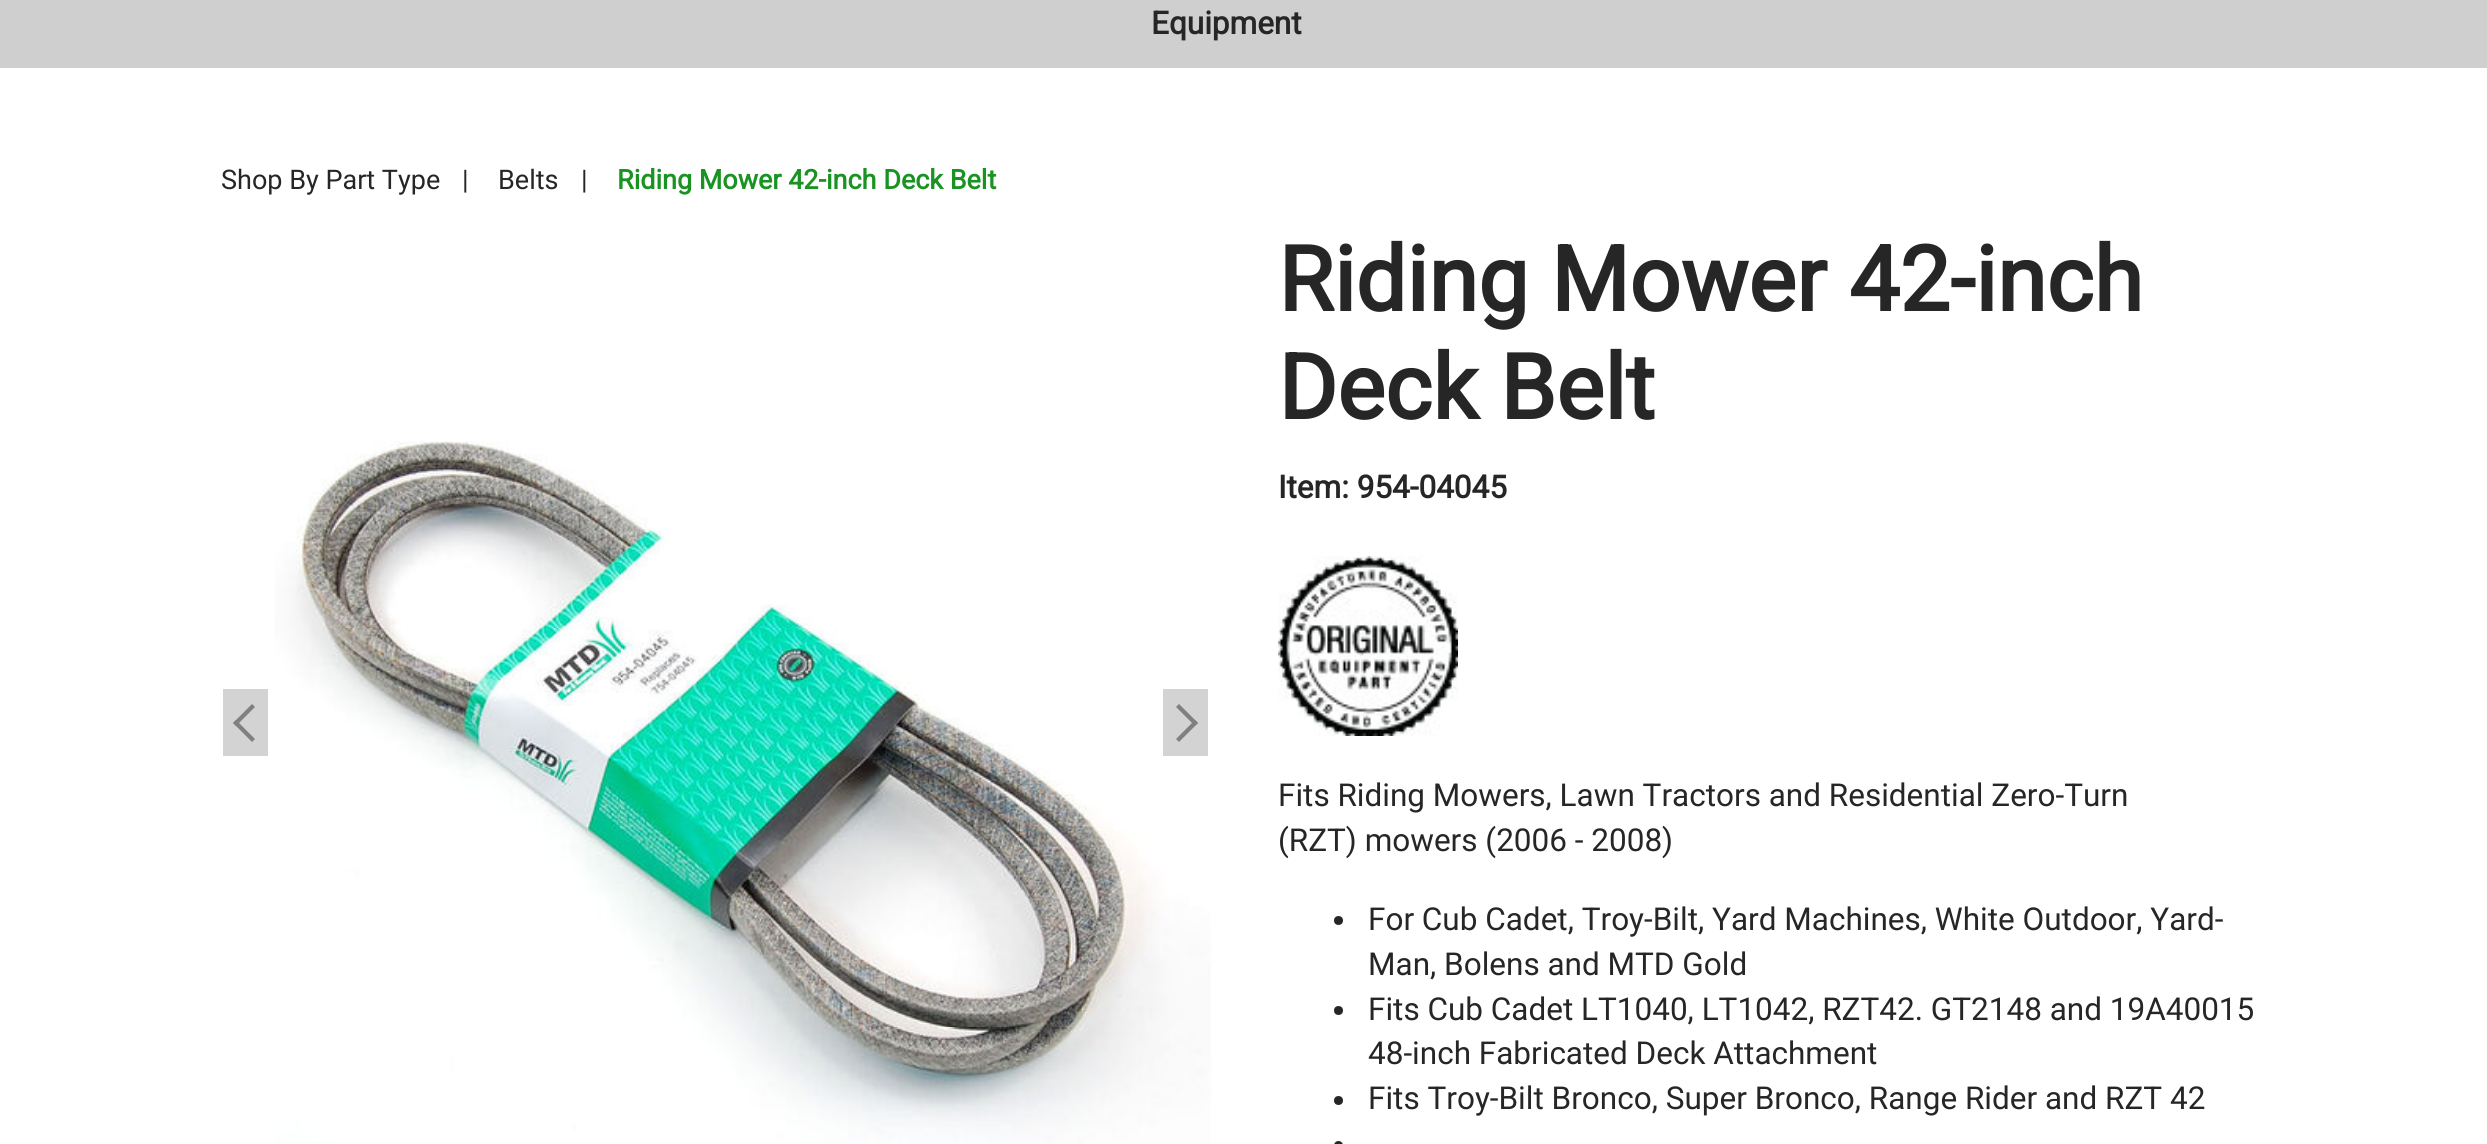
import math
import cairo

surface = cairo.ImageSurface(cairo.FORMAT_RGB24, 2487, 1144)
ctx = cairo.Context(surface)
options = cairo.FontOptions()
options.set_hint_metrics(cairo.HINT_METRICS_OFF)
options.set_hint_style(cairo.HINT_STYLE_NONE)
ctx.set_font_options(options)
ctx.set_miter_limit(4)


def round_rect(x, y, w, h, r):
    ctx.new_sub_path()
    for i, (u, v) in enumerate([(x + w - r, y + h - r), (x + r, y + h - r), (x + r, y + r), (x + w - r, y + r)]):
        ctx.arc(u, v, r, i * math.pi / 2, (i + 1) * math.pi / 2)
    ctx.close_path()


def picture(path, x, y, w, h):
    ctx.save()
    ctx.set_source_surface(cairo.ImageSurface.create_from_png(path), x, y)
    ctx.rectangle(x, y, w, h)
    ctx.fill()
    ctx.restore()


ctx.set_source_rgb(1, 1, 1)
ctx.paint()
ctx.set_source_rgb(0.816, 0.812, 0.812)
ctx.rectangle(0, 0, 2487, 68)
ctx.fill()
ctx.select_font_face("Roboto", cairo.FONT_SLANT_NORMAL, cairo.FONT_WEIGHT_BOLD)
ctx.set_font_size(31.5)
ctx.set_source_rgb(0.149, 0.149, 0.149)
ctx.move_to(1151, 34)
ctx.show_text("Equipment")
ctx.select_font_face("Roboto")
ctx.set_font_size(27)
ctx.move_to(221, 189)
ctx.show_text("Shop By Part Type")
ctx.move_to(462, 189)
ctx.show_text("|")
ctx.move_to(498, 189)
ctx.show_text("Belts")
ctx.move_to(581, 189)
ctx.show_text("|")
ctx.select_font_face("Roboto", cairo.FONT_SLANT_NORMAL, cairo.FONT_WEIGHT_BOLD)
ctx.set_source_rgb(0.098, 0.58, 0.133)
ctx.move_to(617, 189)
ctx.show_text("Riding Mower 42-inch Deck Belt")
ctx.set_source_rgb(0.831, 0.827, 0.827)
ctx.rectangle(223, 689, 45, 67)
ctx.fill()
ctx.set_source_rgb(0.502, 0.502, 0.502)
ctx.new_path()
ctx.move_to(252, 742)
ctx.line_to(233, 723)
ctx.line_to(236, 720)
ctx.line_to(255, 739)
ctx.close_path()
ctx.fill()
ctx.new_path()
ctx.move_to(236, 726)
ctx.line_to(233, 723)
ctx.line_to(252, 704)
ctx.line_to(255, 707)
ctx.close_path()
ctx.fill()
picture("img1.png", 275, 441, 936, 703)
ctx.set_source_rgb(0.831, 0.827, 0.827)
ctx.rectangle(1163, 689, 45, 67)
ctx.fill()
ctx.set_source_rgb(0.502, 0.502, 0.502)
ctx.new_path()
ctx.move_to(1179, 704)
ctx.line_to(1198, 723)
ctx.line_to(1195, 726)
ctx.line_to(1176, 707)
ctx.close_path()
ctx.fill()
ctx.new_path()
ctx.move_to(1195, 720)
ctx.line_to(1198, 723)
ctx.line_to(1179, 742)
ctx.line_to(1176, 739)
ctx.close_path()
ctx.fill()
ctx.set_font_size(90)
ctx.set_source_rgb(0.149, 0.149, 0.149)
ctx.move_to(1278, 311)
ctx.show_text("Riding Mower 42-inch")
ctx.move_to(1278, 419)
ctx.show_text("Deck Belt")
ctx.set_font_size(31.5)
ctx.move_to(1278, 498)
ctx.show_text("Item: 954-04045")
picture("img2.png", 1278, 556, 180, 180)
ctx.select_font_face("Roboto")
ctx.move_to(1278, 806)
ctx.show_text("Fits Riding Mowers, Lawn Tractors and Residential Zero-Turn")
ctx.move_to(1278, 851)
ctx.show_text("(RZT) mowers (2006 - 2008)")
ctx.new_path()
ctx.arc(1338.5, 920.5, 4.5, 0, 2 * math.pi)
ctx.fill()
ctx.move_to(1368, 930)
ctx.show_text("For Cub Cadet, Troy-Bilt, Yard Machines, White Outdoor, Yard-")
ctx.move_to(1368, 975)
ctx.show_text("Man, Bolens and MTD Gold")
ctx.new_path()
ctx.arc(1338.5, 1010.5, 4.5, 0, 2 * math.pi)
ctx.fill()
ctx.move_to(1368, 1020)
ctx.show_text("Fits Cub Cadet LT1040, LT1042, RZT42. GT2148 and 19A40015")
ctx.move_to(1368, 1064)
ctx.show_text("48-inch Fabricated Deck Attachment")
ctx.new_path()
ctx.arc(1338.5, 1100.5, 4.5, 0, 2 * math.pi)
ctx.fill()
ctx.move_to(1368, 1109)
ctx.show_text("Fits Troy-Bilt Bronco, Super Bronco, Range Rider and RZT 42")
round_rect(1334, 1141, 9, 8, 4.5)
ctx.fill()
surface.write_to_png("page.png")
